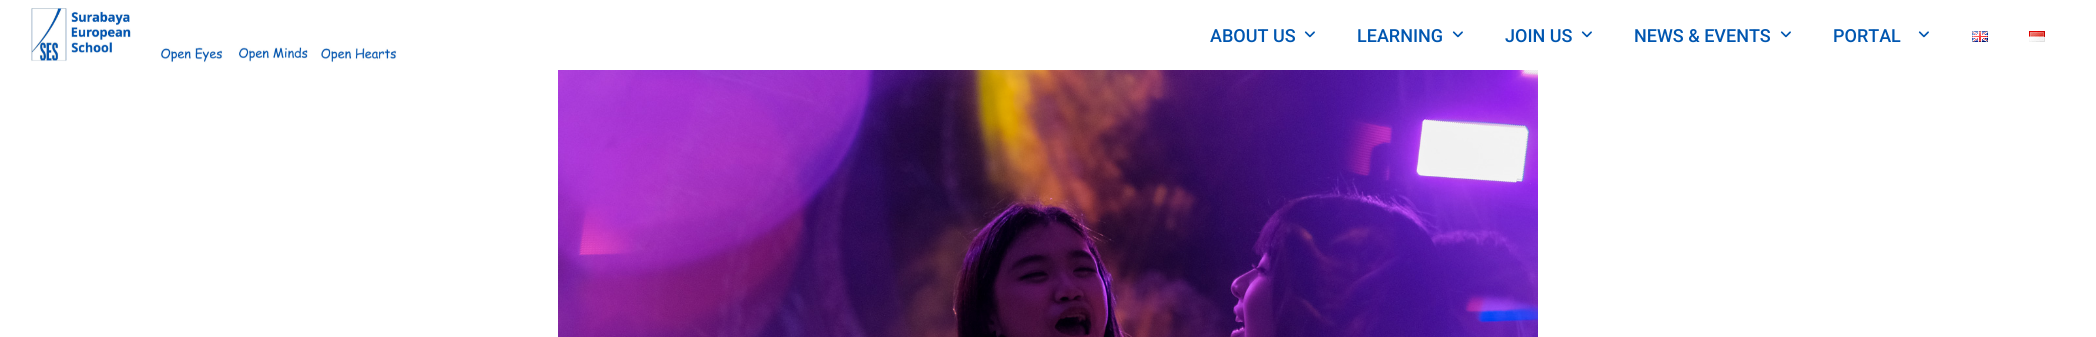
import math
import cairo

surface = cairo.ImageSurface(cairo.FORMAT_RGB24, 2096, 337)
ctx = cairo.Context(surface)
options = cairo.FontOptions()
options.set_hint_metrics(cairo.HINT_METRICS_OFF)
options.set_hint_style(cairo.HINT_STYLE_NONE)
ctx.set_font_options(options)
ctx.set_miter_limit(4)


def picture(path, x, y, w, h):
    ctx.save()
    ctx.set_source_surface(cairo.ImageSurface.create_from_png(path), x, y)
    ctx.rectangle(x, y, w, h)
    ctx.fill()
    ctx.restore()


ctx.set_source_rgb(1, 1, 1)
ctx.paint()
picture("img1.png", 31, 8, 366, 55)
ctx.select_font_face("Roboto Medium")
ctx.set_font_size(18)
ctx.set_source_rgb(0, 0.337, 0.69)
ctx.move_to(1210, 42)
ctx.show_text("ABOUT US")
picture("img2.png", 1304, 31, 11, 7)
ctx.move_to(1357, 42)
ctx.show_text("LEARNING")
picture("img2.png", 1452, 31, 11, 7)
ctx.move_to(1505, 42)
ctx.show_text("JOIN US")
picture("img2.png", 1581, 31, 11, 7)
ctx.move_to(1634, 42)
ctx.show_text("NEWS & EVENTS")
picture("img2.png", 1780, 31, 11, 7)
ctx.move_to(1833, 42)
ctx.show_text("PORTAL")
picture("img2.png", 1918, 31, 11, 7)
picture("img3.png", 1972, 31, 16, 11)
picture("img4.png", 2029, 31, 16, 11)
picture("img5.png", 558, 70, 980, 267)
surface.write_to_png("page.png")
